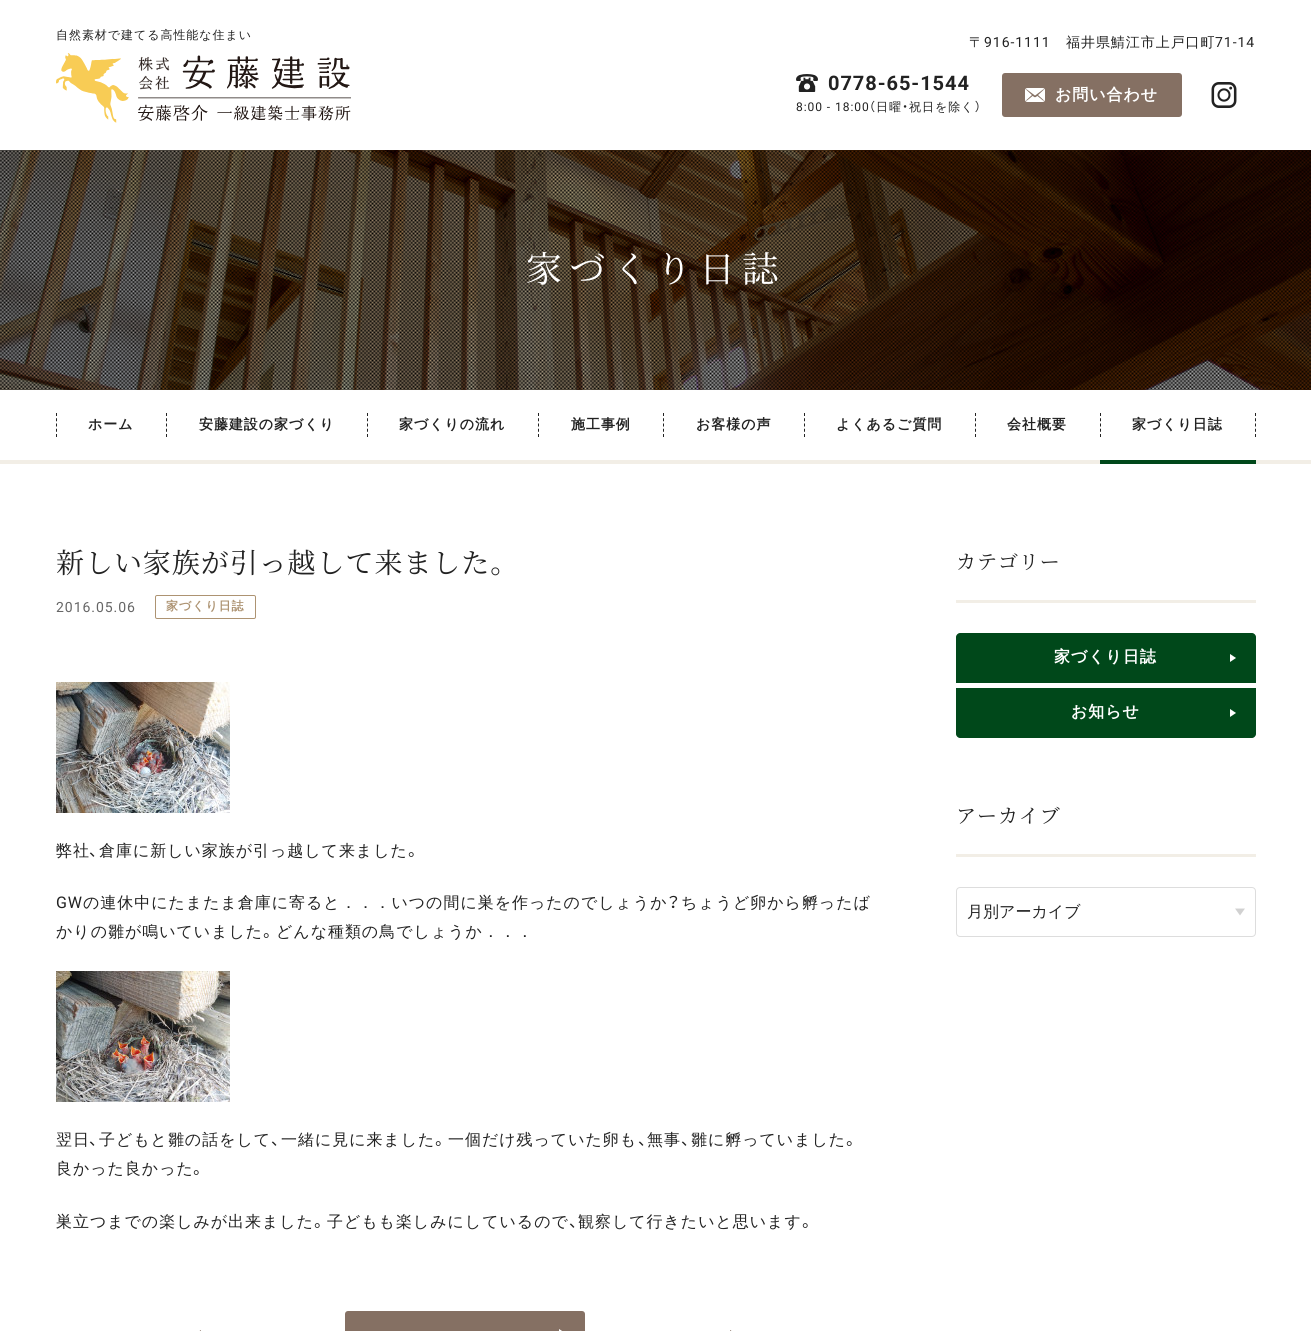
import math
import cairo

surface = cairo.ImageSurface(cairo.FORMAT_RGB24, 1311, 1331)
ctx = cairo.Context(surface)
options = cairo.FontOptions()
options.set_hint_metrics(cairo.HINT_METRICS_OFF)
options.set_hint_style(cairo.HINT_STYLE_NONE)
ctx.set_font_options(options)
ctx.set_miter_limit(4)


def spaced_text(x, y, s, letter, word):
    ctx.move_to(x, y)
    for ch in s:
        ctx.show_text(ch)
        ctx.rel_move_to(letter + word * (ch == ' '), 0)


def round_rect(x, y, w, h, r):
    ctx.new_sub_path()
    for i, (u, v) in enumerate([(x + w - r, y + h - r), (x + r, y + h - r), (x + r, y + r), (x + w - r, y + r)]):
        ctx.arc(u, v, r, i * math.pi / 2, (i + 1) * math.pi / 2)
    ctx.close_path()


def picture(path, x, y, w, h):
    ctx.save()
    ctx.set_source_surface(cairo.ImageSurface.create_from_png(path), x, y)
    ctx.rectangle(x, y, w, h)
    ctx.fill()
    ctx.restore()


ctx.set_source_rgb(1, 1, 1)
ctx.paint()
ctx.select_font_face("WenQuanYi Zen Hei Medium")
ctx.set_font_size(12)
ctx.set_source_rgb(0.133, 0.133, 0.133)
spaced_text(56, 39, "自然素材で建てる高性能な住まい", 0.95, 0)
picture("img1.png", 56, 53, 295, 70)
ctx.set_font_size(14)
spaced_text(969, 47, "〒", 0.95, 0)
ctx.select_font_face("Roboto")
spaced_text(984, 47, "916-1111", 0.95, 0)
ctx.select_font_face("WenQuanYi Zen Hei Medium")
spaced_text(1066, 47, "福井県鯖江市上戸口町", 0.95, 0)
ctx.select_font_face("Roboto")
spaced_text(1215, 47, "71-14", 0.95, 0)
picture("img2.png", 796, 74, 22, 18)
ctx.select_font_face("Roboto", cairo.FONT_SLANT_NORMAL, cairo.FONT_WEIGHT_BOLD)
ctx.set_font_size(20)
spaced_text(828, 90, "0778-65-1544", 0.95, 0)
ctx.select_font_face("Roboto")
ctx.set_font_size(12)
spaced_text(796, 111, "8:00 - 18:00", 0.95, 0)
ctx.select_font_face("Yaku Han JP")
spaced_text(869, 111, "（", 0.95, 0)
ctx.select_font_face("WenQuanYi Zen Hei Medium")
spaced_text(876, 111, "日曜", 0.95, 0)
ctx.select_font_face("Yaku Han JP")
spaced_text(902, 111, "・", 0.95, 0)
ctx.select_font_face("WenQuanYi Zen Hei Medium")
spaced_text(909, 111, "祝日を除く", 0.95, 0)
ctx.select_font_face("Yaku Han JP")
spaced_text(975, 111, "）", 0.95, 0)
ctx.set_source_rgb(0.522, 0.439, 0.388)
round_rect(1002, 73, 180, 44, 3)
ctx.fill()
picture("img3.png", 1025, 88, 20, 14)
ctx.select_font_face("WenQuanYi Zen Hei", cairo.FONT_SLANT_NORMAL, cairo.FONT_WEIGHT_BOLD)
ctx.set_font_size(16)
ctx.set_source_rgb(1, 1, 1)
spaced_text(1055, 100, "お問い合わせ", 0.95, 0)
picture("img4.png", 1211, 82, 26, 26)
picture("img5.png", 0, 150, 1311, 240)
ctx.select_font_face("Noto Serif JP")
ctx.set_font_size(36)
spaced_text(526, 282, "家づくり日誌", 7.25, 0)
ctx.set_source_rgb(0.949, 0.933, 0.902)
ctx.rectangle(0, 460, 1311, 4)
ctx.fill()
ctx.new_path()
ctx.move_to(56.5, 413)
ctx.line_to(56.5, 437)
ctx.set_source_rgb(0.133, 0.133, 0.133)
ctx.set_line_width(1)
ctx.set_dash([3, 2.25])
ctx.stroke()
ctx.select_font_face("WenQuanYi Zen Hei", cairo.FONT_SLANT_NORMAL, cairo.FONT_WEIGHT_BOLD)
ctx.set_font_size(14)
spaced_text(88, 429, "ホーム", 0.95, 0)
ctx.new_path()
ctx.move_to(166.5, 413)
ctx.line_to(166.5, 437)
ctx.stroke()
spaced_text(199, 429, "安藤建設の家づくり", 0.95, 0)
ctx.new_path()
ctx.move_to(367.5, 413)
ctx.line_to(367.5, 437)
ctx.stroke()
spaced_text(399, 429, "家づくりの流れ", 0.95, 0)
ctx.new_path()
ctx.move_to(538.5, 413)
ctx.line_to(538.5, 437)
ctx.stroke()
spaced_text(571, 429, "施工事例", 0.95, 0)
ctx.new_path()
ctx.move_to(663.5, 413)
ctx.line_to(663.5, 437)
ctx.stroke()
spaced_text(696, 429, "お客様の声", 0.95, 0)
ctx.new_path()
ctx.move_to(804.5, 413)
ctx.line_to(804.5, 437)
ctx.stroke()
spaced_text(836, 429, "よくあるご質問", 0.95, 0)
ctx.new_path()
ctx.move_to(975.5, 413)
ctx.line_to(975.5, 437)
ctx.stroke()
spaced_text(1007, 429, "会社概要", 0.95, 0)
ctx.new_path()
ctx.move_to(1100.5, 413)
ctx.line_to(1100.5, 437)
ctx.stroke()
spaced_text(1132, 429, "家づくり日誌", 0.95, 0)
ctx.new_path()
ctx.move_to(1255.5, 413)
ctx.line_to(1255.5, 437)
ctx.stroke()
ctx.set_source_rgb(0, 0.282, 0.102)
ctx.rectangle(1100, 460, 156, 4)
ctx.fill()
ctx.select_font_face("Noto Serif JP")
ctx.set_font_size(28)
ctx.set_source_rgb(0.133, 0.133, 0.133)
spaced_text(56, 573, "新しい家族が引っ越して来ました。", 0.95, 0)
ctx.select_font_face("Roboto")
ctx.set_font_size(14)
ctx.set_source_rgb(0.4, 0.4, 0.4)
spaced_text(56, 612, "2016.05.06", 0.95, 0)
round_rect(155.5, 595.5, 100, 23, 1.5)
ctx.set_source_rgb(0.678, 0.576, 0.447)
ctx.set_dash([])
ctx.stroke()
ctx.select_font_face("WenQuanYi Zen Hei", cairo.FONT_SLANT_NORMAL, cairo.FONT_WEIGHT_BOLD)
ctx.set_font_size(12)
spaced_text(166, 610, "家づくり日誌", 0.95, 0)
picture("img6.png", 56, 682, 174, 131)
ctx.select_font_face("WenQuanYi Zen Hei Medium")
ctx.set_font_size(16)
ctx.set_source_rgb(0.133, 0.133, 0.133)
spaced_text(56, 856, "弊社", 0.95, 0)
ctx.select_font_face("Yaku Han JP")
spaced_text(89, 856, "、", 0.95, 0)
ctx.select_font_face("WenQuanYi Zen Hei Medium")
spaced_text(99, 856, "倉庫に新しい家族が引っ越して来ました", 0.95, 0)
ctx.select_font_face("Yaku Han JP")
spaced_text(408, 856, "。", 0.95, 0)
ctx.select_font_face("Roboto")
spaced_text(56, 908, "GW", 0.95, 0)
ctx.select_font_face("WenQuanYi Zen Hei Medium")
spaced_text(83, 908, "の連休中にたまたま倉庫に寄ると．．．いつの間に巣を作ったのでしょうか", 0.95, 0)
ctx.select_font_face("Yaku Han JP")
spaced_text(667, 908, "？", 0.95, 0)
ctx.select_font_face("WenQuanYi Zen Hei Medium")
spaced_text(681, 908, "ちょうど卵から孵ったば", 0.95, 0)
spaced_text(56, 937, "かりの雛が鳴いていました", 0.95, 0)
ctx.select_font_face("Yaku Han JP")
spaced_text(263, 937, "。", 0.95, 0)
ctx.select_font_face("WenQuanYi Zen Hei Medium")
spaced_text(276, 937, "どんな種類の鳥でしょうか．．．", 0.95, 0)
picture("img7.png", 56, 971, 174, 131)
spaced_text(56, 1145, "翌日", 0.95, 0)
ctx.select_font_face("Yaku Han JP")
spaced_text(89, 1145, "、", 0.95, 0)
ctx.select_font_face("WenQuanYi Zen Hei Medium")
spaced_text(99, 1145, "子どもと雛の話をして", 0.95, 0)
ctx.select_font_face("Yaku Han JP")
spaced_text(271, 1145, "、", 0.95, 0)
ctx.select_font_face("WenQuanYi Zen Hei Medium")
spaced_text(281, 1145, "一緒に見に来ました", 0.95, 0)
ctx.select_font_face("Yaku Han JP")
spaced_text(435, 1145, "。", 0.95, 0)
ctx.select_font_face("WenQuanYi Zen Hei Medium")
spaced_text(448, 1145, "一個だけ残っていた卵も", 0.95, 0)
ctx.select_font_face("Yaku Han JP")
spaced_text(638, 1145, "、", 0.95, 0)
ctx.select_font_face("WenQuanYi Zen Hei Medium")
spaced_text(647, 1145, "無事", 0.95, 0)
ctx.select_font_face("Yaku Han JP")
spaced_text(681, 1145, "、", 0.95, 0)
ctx.select_font_face("WenQuanYi Zen Hei Medium")
spaced_text(691, 1145, "雛に孵っていました", 0.95, 0)
ctx.select_font_face("Yaku Han JP")
spaced_text(846, 1145, "。", 0.95, 0)
ctx.select_font_face("WenQuanYi Zen Hei Medium")
spaced_text(56, 1174, "良かった良かった", 0.95, 0)
ctx.select_font_face("Yaku Han JP")
spaced_text(193, 1174, "。", 0.95, 0)
ctx.select_font_face("WenQuanYi Zen Hei Medium")
spaced_text(56, 1227, "巣立つまでの楽しみが出来ました", 0.95, 0)
ctx.select_font_face("Yaku Han JP")
spaced_text(314, 1227, "。", 0.95, 0)
ctx.select_font_face("WenQuanYi Zen Hei Medium")
spaced_text(327, 1227, "子どもも楽しみにしているので", 0.95, 0)
ctx.select_font_face("Yaku Han JP")
spaced_text(569, 1227, "、", 0.95, 0)
ctx.select_font_face("WenQuanYi Zen Hei Medium")
spaced_text(578, 1227, "観察して行きたいと思います", 0.95, 0)
ctx.select_font_face("Yaku Han JP")
spaced_text(802, 1227, "。", 0.95, 0)
ctx.set_source_rgb(0.522, 0.439, 0.388)
ctx.new_path()
ctx.move_to(201, 1330)
ctx.line_to(201, 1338)
ctx.line_to(195, 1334)
ctx.close_path()
ctx.fill()
round_rect(345, 1311, 240, 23, 3)
ctx.fill()
ctx.set_source_rgb(1, 1, 1)
ctx.new_path()
ctx.move_to(559, 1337)
ctx.line_to(559, 1329)
ctx.line_to(565, 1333)
ctx.close_path()
ctx.fill()
ctx.set_source_rgb(0.522, 0.439, 0.388)
ctx.new_path()
ctx.move_to(730, 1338)
ctx.line_to(730, 1330)
ctx.line_to(736, 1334)
ctx.close_path()
ctx.fill()
ctx.set_source_rgb(0.949, 0.933, 0.902)
ctx.rectangle(956, 600, 300, 3)
ctx.fill()
ctx.select_font_face("Noto Serif JP")
ctx.set_font_size(20)
ctx.set_source_rgb(0.133, 0.133, 0.133)
spaced_text(956, 569, "カテゴリー", 0.95, 0)
ctx.set_source_rgb(0, 0.282, 0.102)
ctx.new_path()
ctx.move_to(960, 633)
ctx.line_to(1252, 633)
ctx.curve_to(1254, 633, 1256, 635, 1256, 637)
ctx.line_to(1256, 683)
ctx.line_to(956, 683)
ctx.line_to(956, 637)
ctx.curve_to(956, 635, 958, 633, 960, 633)
ctx.close_path()
ctx.fill()
ctx.select_font_face("WenQuanYi Zen Hei", cairo.FONT_SLANT_NORMAL, cairo.FONT_WEIGHT_BOLD)
ctx.set_font_size(16)
ctx.set_source_rgb(1, 1, 1)
spaced_text(1054, 662, "家づくり日誌", 0.95, 0)
ctx.new_path()
ctx.move_to(1230, 662)
ctx.line_to(1230, 654)
ctx.line_to(1236, 658)
ctx.close_path()
ctx.fill()
ctx.set_source_rgb(0, 0.282, 0.102)
ctx.new_path()
ctx.move_to(956, 688)
ctx.line_to(1256, 688)
ctx.line_to(1256, 734)
ctx.curve_to(1256, 736, 1254, 738, 1252, 738)
ctx.line_to(960, 738)
ctx.curve_to(958, 738, 956, 736, 956, 734)
ctx.close_path()
ctx.fill()
ctx.set_source_rgb(1, 1, 1)
spaced_text(1071, 717, "お知らせ", 0.95, 0)
ctx.new_path()
ctx.move_to(1230, 717)
ctx.line_to(1230, 709)
ctx.line_to(1236, 713)
ctx.close_path()
ctx.fill()
ctx.set_source_rgb(0.949, 0.933, 0.902)
ctx.rectangle(956, 854, 300, 3)
ctx.fill()
ctx.select_font_face("Noto Serif JP")
ctx.set_font_size(20)
ctx.set_source_rgb(0.133, 0.133, 0.133)
spaced_text(956, 823, "アーカイブ", 0.95, 0)
ctx.set_source_rgb(0.82, 0.82, 0.82)
ctx.set_fill_rule(cairo.FILL_RULE_EVEN_ODD)
ctx.new_path()
ctx.move_to(1240, 915.5)
ctx.line_to(1235, 908.5)
ctx.line_to(1245, 908.5)
ctx.close_path()
ctx.fill()
round_rect(956.5, 887.5, 299, 49, 3.5)
ctx.set_source_rgb(0.867, 0.867, 0.867)
ctx.stroke()
ctx.select_font_face("WenQuanYi Zen Hei Medium")
ctx.set_font_size(16)
ctx.set_source_rgb(0.133, 0.133, 0.133)
ctx.move_to(967, 917)
ctx.show_text("月別アーカイブ")
surface.write_to_png("page.png")
